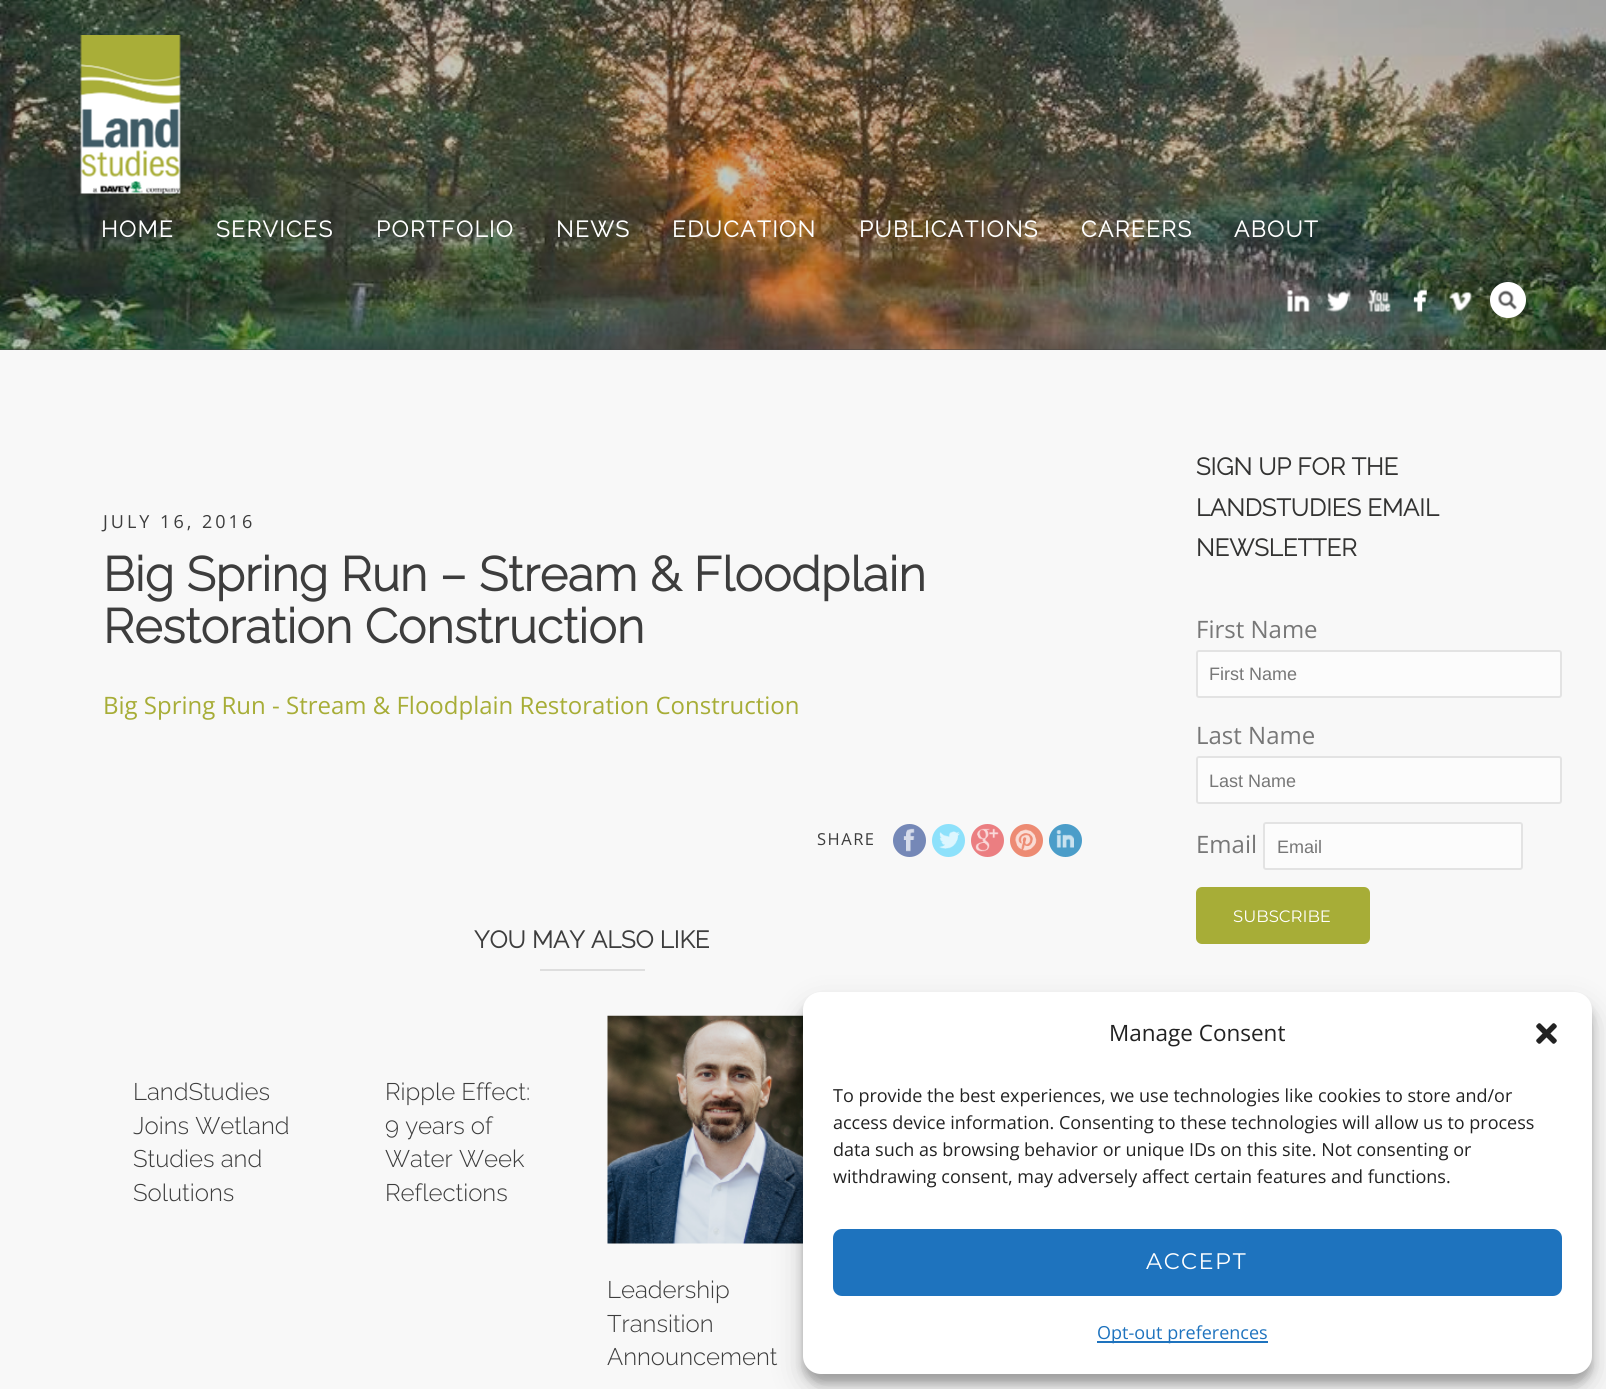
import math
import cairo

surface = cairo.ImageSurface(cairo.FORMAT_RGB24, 1606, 1389)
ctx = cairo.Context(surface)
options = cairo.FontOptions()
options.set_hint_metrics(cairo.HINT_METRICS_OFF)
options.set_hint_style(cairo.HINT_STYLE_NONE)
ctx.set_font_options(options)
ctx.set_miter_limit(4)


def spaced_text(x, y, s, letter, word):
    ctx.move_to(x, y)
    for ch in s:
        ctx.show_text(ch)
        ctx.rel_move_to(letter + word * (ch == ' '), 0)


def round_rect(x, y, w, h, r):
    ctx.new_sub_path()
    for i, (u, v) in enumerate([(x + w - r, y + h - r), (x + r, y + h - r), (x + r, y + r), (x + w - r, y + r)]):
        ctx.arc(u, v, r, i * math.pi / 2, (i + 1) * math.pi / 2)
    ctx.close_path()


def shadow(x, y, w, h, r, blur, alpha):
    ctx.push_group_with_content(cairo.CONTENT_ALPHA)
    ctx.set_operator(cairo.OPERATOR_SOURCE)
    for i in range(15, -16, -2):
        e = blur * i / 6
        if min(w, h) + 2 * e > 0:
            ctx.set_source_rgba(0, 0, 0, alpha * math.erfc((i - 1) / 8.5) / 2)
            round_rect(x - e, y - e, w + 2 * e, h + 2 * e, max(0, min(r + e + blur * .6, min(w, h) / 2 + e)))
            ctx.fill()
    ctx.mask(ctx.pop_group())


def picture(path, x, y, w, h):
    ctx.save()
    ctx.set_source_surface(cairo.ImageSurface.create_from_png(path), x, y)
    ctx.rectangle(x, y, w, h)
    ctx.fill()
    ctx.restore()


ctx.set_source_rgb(0.969, 0.969, 0.969)
ctx.paint()
ctx.set_source_rgb(0.267, 0.267, 0.267)
ctx.rectangle(0, 0, 1606, 350)
ctx.fill()
picture("img1.png", 0, 0, 1606, 350)
picture("img2.png", 80, 35, 101, 159)
ctx.select_font_face("Raleway", cairo.FONT_SLANT_NORMAL, cairo.FONT_WEIGHT_BOLD)
ctx.set_font_size(22.5)
ctx.set_source_rgb(1, 1, 1)
spaced_text(101, 237, "HOME", 1.5, 0)
spaced_text(216, 237, "SERVICES", 1.5, 0)
spaced_text(376, 237, "PORTFOLIO", 1.5, 0)
spaced_text(556, 237, "NEWS", 1.5, 0)
spaced_text(672, 237, "EDUCATION", 1.5, 0)
spaced_text(859, 237, "PUBLICATIONS", 1.5, 0)
spaced_text(1081, 237, "CAREERS", 1.5, 0)
spaced_text(1234, 237, "ABOUT", 1.5, 0)
picture("img3.png", 1286, 290, 24, 22)
picture("img4.png", 1327, 291, 24, 21)
picture("img5.png", 1368, 290, 23, 22)
picture("img6.png", 1413, 289, 14, 23)
picture("img7.png", 1449, 292, 23, 20)
ctx.arc(1508, 300, 18, 0, 2 * math.pi)
ctx.fill()
picture("img8.png", 1498, 290, 19, 20)
ctx.select_font_face("Open Sans")
ctx.set_font_size(18)
ctx.set_source_rgb(0.239, 0.239, 0.239)
spaced_text(103, 528, "JULY 16, 2016", 3, 0)
ctx.select_font_face("Raleway", cairo.FONT_SLANT_NORMAL, cairo.FONT_WEIGHT_BOLD)
ctx.set_font_size(48)
ctx.move_to(103, 591)
ctx.show_text("Big Spring Run – Stream & Floodplain")
ctx.move_to(103, 643)
ctx.show_text("Restoration Construction")
ctx.select_font_face("Open Sans")
ctx.set_font_size(24)
ctx.set_source_rgb(0.655, 0.678, 0.216)
ctx.move_to(103, 714)
ctx.show_text("Big Spring Run - Stream & Floodplain Restoration Construction")
ctx.set_font_size(16.5)
ctx.set_source_rgb(0.239, 0.239, 0.239)
spaced_text(817, 845, "SHARE", 1.5, 0)
ctx.set_source_rgb(0.459, 0.533, 0.718)
ctx.new_path()
ctx.arc(909.5, 840.5, 16.5, 0, 2 * math.pi)
ctx.fill()
picture("img9.png", 903, 828, 12, 24)
ctx.set_source_rgb(0.553, 0.882, 0.984)
ctx.arc(948.5, 840.5, 16.5, 0, 2 * math.pi)
ctx.fill()
picture("img10.png", 939, 831, 21, 18)
ctx.set_source_rgb(0.918, 0.494, 0.506)
ctx.arc(987.5, 840.5, 16.5, 0, 2 * math.pi)
ctx.fill()
picture("img11.png", 975, 828, 24, 24)
ctx.set_source_rgb(0.929, 0.545, 0.451)
ctx.arc(1026.5, 840.5, 16.5, 0, 2 * math.pi)
ctx.fill()
picture("img12.png", 1015, 829, 22, 22)
ctx.set_source_rgb(0.294, 0.616, 0.788)
ctx.arc(1065.5, 840.5, 16.5, 0, 2 * math.pi)
ctx.fill()
picture("img13.png", 1056, 830, 18, 18)
ctx.select_font_face("Raleway", cairo.FONT_SLANT_NORMAL, cairo.FONT_WEIGHT_BOLD)
ctx.set_font_size(24)
ctx.set_source_rgb(0.239, 0.239, 0.239)
ctx.move_to(474, 948)
ctx.show_text("YOU MAY ALSO LIKE")
ctx.set_source_rgb(0.871, 0.871, 0.871)
ctx.rectangle(540, 969, 105, 2)
ctx.fill()
ctx.select_font_face("Raleway Thin")
ctx.set_source_rgb(0.239, 0.239, 0.239)
ctx.move_to(133, 1100)
ctx.show_text("LandStudies")
ctx.move_to(133, 1134)
ctx.show_text("Joins Wetland")
ctx.move_to(133, 1167)
ctx.show_text("Studies and")
ctx.move_to(133, 1201)
ctx.show_text("Solutions")
ctx.move_to(385, 1100)
ctx.show_text("Ripple Effect:")
ctx.move_to(385, 1134)
ctx.show_text("9 years of")
ctx.move_to(385, 1167)
ctx.show_text("Water Week")
ctx.move_to(385, 1201)
ctx.show_text("Reflections")
picture("img14.png", 607, 1015, 196, 229)
ctx.move_to(607, 1298)
ctx.show_text("Leadership")
ctx.move_to(607, 1332)
ctx.show_text("Transition")
ctx.move_to(607, 1365)
ctx.show_text("Announcement")
ctx.select_font_face("Raleway", cairo.FONT_SLANT_NORMAL, cairo.FONT_WEIGHT_BOLD)
ctx.set_source_rgb(0.2, 0.2, 0.196)
ctx.move_to(1196, 475)
ctx.show_text("SIGN UP FOR THE")
ctx.move_to(1196, 516)
ctx.show_text("LANDSTUDIES EMAIL")
ctx.move_to(1196, 556)
ctx.show_text("NEWSLETTER")
ctx.select_font_face("Open Sans")
ctx.set_source_rgb(0.467, 0.467, 0.467)
ctx.move_to(1196, 638)
ctx.show_text("First Name")
ctx.set_source_rgb(0.988, 0.988, 0.988)
round_rect(1197, 651, 364, 46, 2)
ctx.fill_preserve()
ctx.set_source_rgb(0.89, 0.89, 0.89)
ctx.stroke()
ctx.select_font_face("Liberation Sans")
ctx.set_font_size(18)
ctx.set_source_rgb(0.467, 0.467, 0.467)
ctx.move_to(1209, 680)
ctx.show_text("First Name")
ctx.select_font_face("Open Sans")
ctx.set_font_size(24)
ctx.move_to(1196, 744)
ctx.show_text("Last Name")
ctx.set_source_rgb(0.988, 0.988, 0.988)
round_rect(1197, 757, 364, 46, 2)
ctx.fill_preserve()
ctx.set_source_rgb(0.89, 0.89, 0.89)
ctx.stroke()
ctx.select_font_face("Liberation Sans")
ctx.set_font_size(18)
ctx.set_source_rgb(0.467, 0.467, 0.467)
ctx.move_to(1209, 787)
ctx.show_text("Last Name")
ctx.select_font_face("Open Sans")
ctx.set_font_size(24)
ctx.move_to(1196, 853)
ctx.show_text("Email")
ctx.set_source_rgb(0.988, 0.988, 0.988)
round_rect(1264, 823, 258, 46, 2)
ctx.fill_preserve()
ctx.set_source_rgb(0.89, 0.89, 0.89)
ctx.stroke()
ctx.select_font_face("Liberation Sans")
ctx.set_font_size(18)
ctx.set_source_rgb(0.467, 0.467, 0.467)
ctx.move_to(1277, 853)
ctx.show_text("Email")
ctx.set_source_rgb(0.655, 0.678, 0.216)
round_rect(1196, 887, 174, 57, 6)
ctx.fill()
ctx.select_font_face("Montserrat")
ctx.set_font_size(16.5)
ctx.set_source_rgb(1, 1, 1)
ctx.move_to(1233, 922)
ctx.show_text("SUBSCRIBE")
ctx.set_source_rgb(0, 0, 0)
shadow(803, 1001, 789, 382, 18, 4.5, 0.23)
shadow(803, 1007, 789, 382, 18, 15, 0.19)
ctx.set_source_rgb(1, 1, 1)
round_rect(803, 992, 789, 382, 18)
ctx.fill()
ctx.select_font_face("Open Sans")
ctx.set_font_size(22.5)
ctx.set_source_rgb(0.133, 0.133, 0.133)
ctx.move_to(1109, 1041)
ctx.show_text("Manage Consent")
picture("img15.png", 1536, 1023, 21, 21)
ctx.set_font_size(18)
ctx.move_to(833, 1102)
ctx.show_text("To provide the best experiences, we use technologies like cookies to store and/or")
ctx.move_to(833, 1129)
ctx.show_text("access device information. Consenting to these technologies will allow us to process")
ctx.move_to(833, 1156)
ctx.show_text("data such as browsing behavior or unique IDs on this site. Not consenting or")
ctx.move_to(833, 1183)
ctx.show_text("withdrawing consent, may adversely affect certain features and functions.")
ctx.set_source_rgb(0.118, 0.451, 0.745)
round_rect(834, 1230, 727, 65, 8)
ctx.fill_preserve()
ctx.stroke()
ctx.select_font_face("Montserrat")
ctx.set_font_size(22.5)
ctx.set_source_rgb(1, 1, 1)
spaced_text(1146, 1269, "ACCEPT", 1.5, 0)
ctx.set_source_rgb(0.118, 0.451, 0.745)
ctx.rectangle(1097, 1341, 171, 2)
ctx.fill()
ctx.select_font_face("Open Sans")
ctx.set_font_size(18)
ctx.move_to(1097, 1339)
ctx.show_text("Opt-out preferences")
surface.write_to_png("page.png")
